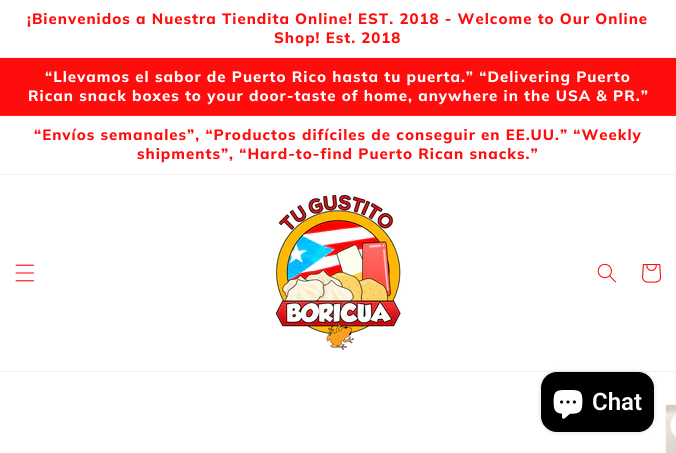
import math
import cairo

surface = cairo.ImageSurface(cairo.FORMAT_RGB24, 676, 453)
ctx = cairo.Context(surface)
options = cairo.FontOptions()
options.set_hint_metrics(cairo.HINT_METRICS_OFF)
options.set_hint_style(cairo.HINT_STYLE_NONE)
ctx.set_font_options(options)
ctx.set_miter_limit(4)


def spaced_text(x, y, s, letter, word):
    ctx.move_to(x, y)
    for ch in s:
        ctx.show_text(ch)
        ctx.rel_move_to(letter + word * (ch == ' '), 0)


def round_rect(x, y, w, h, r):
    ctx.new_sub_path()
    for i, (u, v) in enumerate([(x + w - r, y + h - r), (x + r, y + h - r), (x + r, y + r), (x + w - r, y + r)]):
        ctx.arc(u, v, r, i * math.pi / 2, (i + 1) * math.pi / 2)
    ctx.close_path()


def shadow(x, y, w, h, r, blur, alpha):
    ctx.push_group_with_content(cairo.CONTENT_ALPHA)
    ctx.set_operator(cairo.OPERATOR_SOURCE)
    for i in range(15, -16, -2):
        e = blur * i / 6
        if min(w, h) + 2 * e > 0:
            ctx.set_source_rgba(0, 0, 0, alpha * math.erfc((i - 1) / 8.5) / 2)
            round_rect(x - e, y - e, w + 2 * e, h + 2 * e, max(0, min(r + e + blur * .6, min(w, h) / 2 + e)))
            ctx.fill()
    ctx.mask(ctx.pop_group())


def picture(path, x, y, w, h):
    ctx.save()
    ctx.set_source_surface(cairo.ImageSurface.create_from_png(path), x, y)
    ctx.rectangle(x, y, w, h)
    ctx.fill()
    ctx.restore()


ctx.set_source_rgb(1, 1, 1)
ctx.paint()
ctx.set_source_rgb(1, 0.925, 0.925)
ctx.rectangle(0, 57, 676, 1)
ctx.fill()
ctx.select_font_face("Muli ExtraBold")
ctx.set_font_size(15)
ctx.set_source_rgb(1, 0.051, 0.051)
spaced_text(27, 24, "¡Bienvenidos a Nuestra Tiendita Online! EST. 2018 - Welcome to Our Online", 1, 0)
spaced_text(274, 43, "Shop! Est. 2018", 1, 0)
ctx.rectangle(0, 58, 676, 57)
ctx.fill()
ctx.set_source_rgb(1, 0.125, 0.125)
ctx.rectangle(0, 115, 676, 1)
ctx.fill()
ctx.set_source_rgb(1, 1, 1)
spaced_text(45, 82, "“Llevamos el sabor de Puerto Rico hasta tu puerta.” “Delivering Puerto", 1, 0)
spaced_text(28, 101, "Rican snack boxes to your door-taste of home, anywhere in the USA & PR.”", 1, 0)
ctx.set_source_rgb(1, 0.925, 0.925)
ctx.rectangle(0, 174, 676, 1)
ctx.fill()
ctx.set_source_rgb(1, 0.051, 0.051)
spaced_text(34, 140, "“Envíos semanales”, “Productos difíciles de conseguir en EE.UU.” “Weekly", 1, 0)
spaced_text(137, 159, "shipments”, “Hard-to-find Puerto Rican snacks.”", 1, 0)
ctx.set_source_rgb(1, 0.925, 0.925)
ctx.rectangle(0, 371, 676, 1)
ctx.fill()
picture("img1.png", 15, 264, 20, 18)
picture("img2.png", 275, 194, 126, 156)
picture("img3.png", 597, 263, 19, 20)
picture("img4.png", 642, 264, 20, 19)
ctx.set_source_rgb(0, 0, 0)
shadow(541, 372, 113, 60, 16, 2.5, 0.15)
ctx.set_source_rgb(0, 0, 0)
round_rect(541, 372, 113, 60, 16)
ctx.fill()
picture("img5.png", 553, 390, 30, 29)
ctx.select_font_face("Roboto SemiBold")
ctx.set_font_size(24)
ctx.set_source_rgb(1, 1, 1)
ctx.move_to(592, 410)
ctx.show_text("Chat")
ctx.rectangle(665.5, 404.5, 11, 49)
ctx.set_source_rgb(1, 0.953, 0.953)
ctx.set_line_width(1)
ctx.stroke()
picture("img6.png", 666, 405, 10, 48)
ctx.set_source_rgb(1, 1, 1)
ctx.new_path()
ctx.move_to(686, 409)
ctx.line_to(676, 409)
ctx.line_to(676, 441)
ctx.line_to(686, 441)
ctx.curve_to(677, 441, 670, 434, 670, 425)
ctx.curve_to(670, 416, 677, 409, 686, 409)
ctx.close_path()
ctx.fill()
round_rect(670.5, 409.5, 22, 31, 15.5)
ctx.set_source_rgba(1, 0.051, 0.051, 0.1)
ctx.stroke()
surface.write_to_png("page.png")
